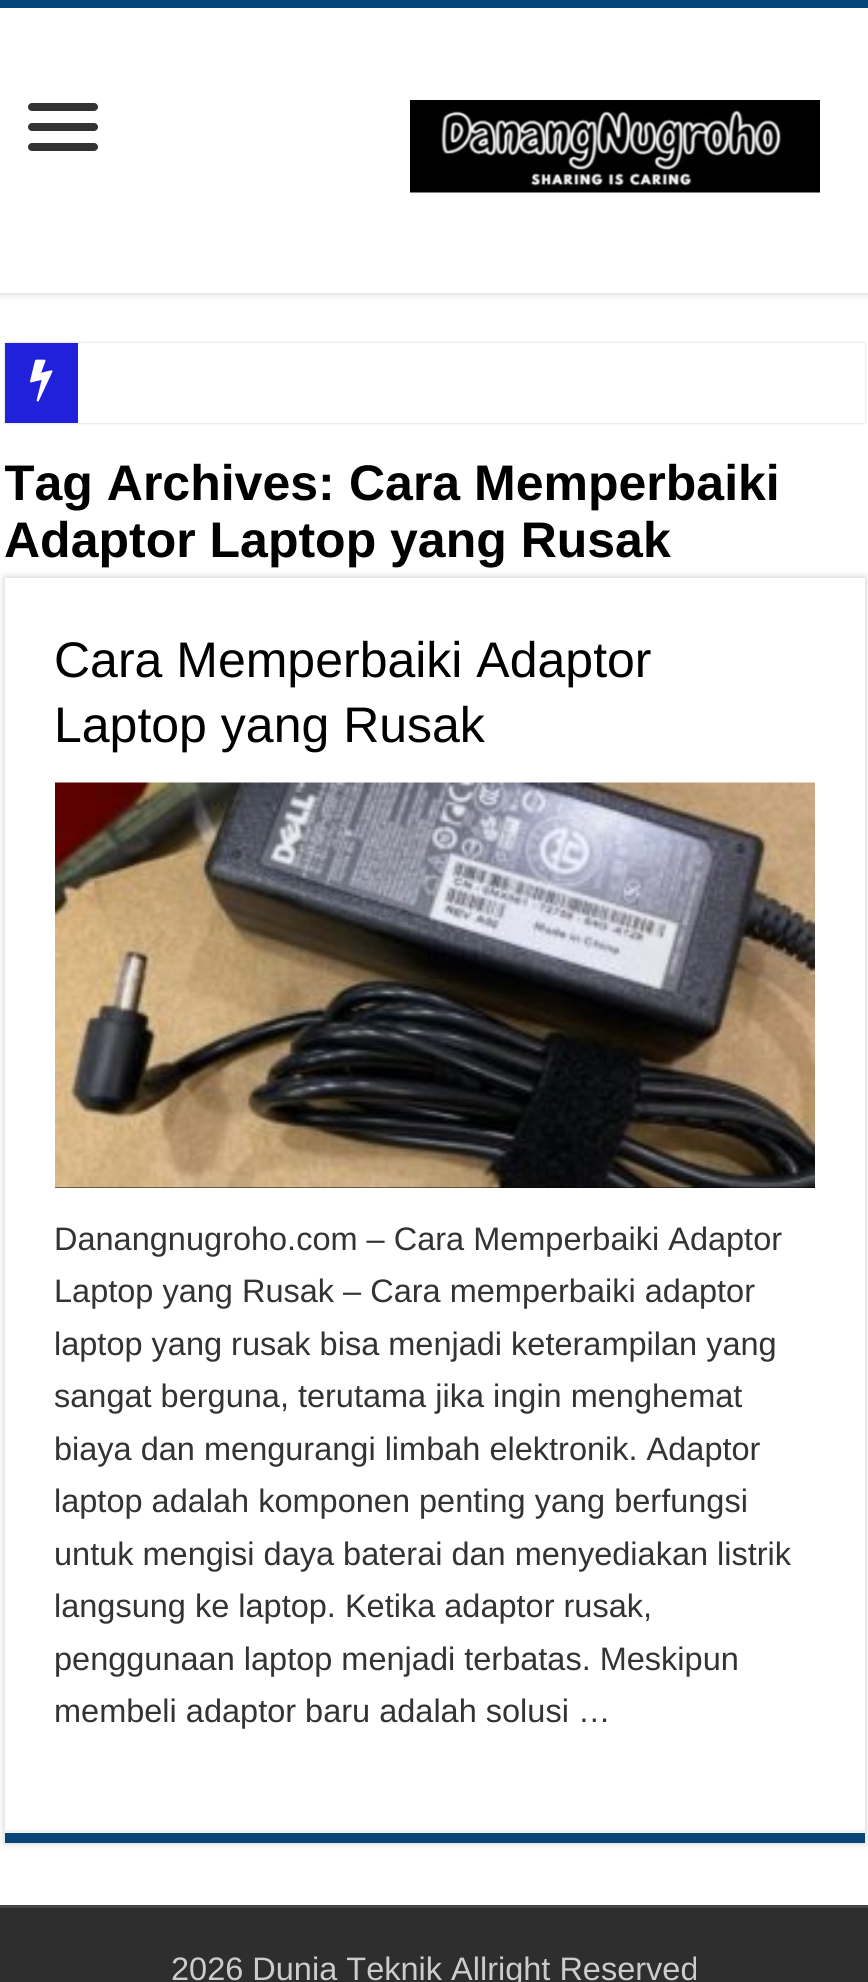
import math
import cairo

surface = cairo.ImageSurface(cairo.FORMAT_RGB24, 868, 1982)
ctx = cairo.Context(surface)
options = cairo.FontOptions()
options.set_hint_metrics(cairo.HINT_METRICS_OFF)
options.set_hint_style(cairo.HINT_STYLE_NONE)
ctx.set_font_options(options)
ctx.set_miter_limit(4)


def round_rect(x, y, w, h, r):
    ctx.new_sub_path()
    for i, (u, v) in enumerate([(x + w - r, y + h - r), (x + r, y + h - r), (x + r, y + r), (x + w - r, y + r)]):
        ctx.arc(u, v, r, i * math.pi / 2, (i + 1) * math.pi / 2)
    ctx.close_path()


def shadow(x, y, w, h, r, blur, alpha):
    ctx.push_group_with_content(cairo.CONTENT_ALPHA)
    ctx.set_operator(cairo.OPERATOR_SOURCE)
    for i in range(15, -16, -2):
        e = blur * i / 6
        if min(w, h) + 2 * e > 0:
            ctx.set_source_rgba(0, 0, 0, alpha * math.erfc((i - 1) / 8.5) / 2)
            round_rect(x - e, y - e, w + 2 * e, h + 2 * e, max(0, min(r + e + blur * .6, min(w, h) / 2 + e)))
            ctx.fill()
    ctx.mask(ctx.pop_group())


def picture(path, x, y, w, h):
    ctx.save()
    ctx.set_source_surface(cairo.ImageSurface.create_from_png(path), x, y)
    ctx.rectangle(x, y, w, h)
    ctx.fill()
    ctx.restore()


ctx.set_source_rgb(1, 1, 1)
ctx.paint()
ctx.set_source_rgb(0.792, 0.792, 0.792)
shadow(0, 0, 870, 293, 0, 4, 1)
ctx.set_source_rgb(1, 1, 1)
ctx.rectangle(0, 8, 868, 285)
ctx.fill()
ctx.set_source_rgb(0.031, 0.267, 0.471)
ctx.rectangle(0, 0, 868, 8)
ctx.fill()
ctx.set_source_rgb(0.2, 0.2, 0.2)
round_rect(28, 103, 70, 8, 4)
ctx.fill()
round_rect(28, 123, 70, 8, 4)
ctx.fill()
round_rect(28, 143, 70, 8, 4)
ctx.fill()
picture("img1.png", 410, 100, 410, 93)
ctx.set_source_rgb(0.792, 0.792, 0.792)
shadow(5, 343, 860, 80, 0, 1, 1)
ctx.set_source_rgb(1, 1, 1)
ctx.rectangle(78, 343, 787, 80)
ctx.fill()
ctx.set_source_rgb(0.129, 0.129, 0.859)
ctx.rectangle(5, 343, 73, 80)
ctx.fill()
picture("img2.png", 30, 359, 23, 43)
ctx.save()
ctx.rectangle(5, 448, 860, 130)
ctx.clip()
ctx.select_font_face("Liberation Sans", cairo.FONT_SLANT_NORMAL, cairo.FONT_WEIGHT_BOLD)
ctx.set_font_size(50)
ctx.set_source_rgb(0, 0, 0)
ctx.move_to(4, 500)
ctx.show_text("Tag Archives:")
ctx.restore()
ctx.select_font_face("Liberation Sans", cairo.FONT_SLANT_NORMAL, cairo.FONT_WEIGHT_BOLD)
ctx.set_font_size(50)
ctx.set_source_rgb(0, 0, 0)
ctx.move_to(349, 500)
ctx.show_text("Cara Memperbaiki")
ctx.set_source_rgb(0.792, 0.792, 0.792)
shadow(5, 578, 860, 1265, 0, 4, 1)
ctx.set_source_rgb(0, 0, 0)
ctx.move_to(4, 557)
ctx.show_text("Adaptor Laptop yang Rusak")
ctx.set_source_rgb(1, 1, 1)
ctx.rectangle(5, 578, 860, 1252)
ctx.fill()
ctx.set_source_rgb(0.031, 0.267, 0.471)
ctx.rectangle(5, 1833, 860, 10)
ctx.fill()
ctx.set_source_rgb(0.949, 0.949, 0.949)
ctx.rectangle(5, 1830, 860, 3)
ctx.fill()
ctx.select_font_face("Liberation Sans")
ctx.set_source_rgb(0, 0, 0)
ctx.move_to(54, 677)
ctx.show_text("Cara Memperbaiki Adaptor")
ctx.move_to(54, 742)
ctx.show_text("Laptop yang Rusak")
ctx.rectangle(55, 1187, 760, 1)
ctx.fill()
picture("img3.png", 55, 782, 760, 406)
ctx.set_font_size(32.5)
ctx.set_source_rgb(0.2, 0.2, 0.2)
ctx.move_to(54, 1250)
ctx.show_text("Danangnugroho.com – Cara Memperbaiki Adaptor")
ctx.move_to(54, 1302)
ctx.show_text("Laptop yang Rusak – Cara memperbaiki adaptor")
ctx.move_to(54, 1355)
ctx.show_text("laptop yang rusak bisa menjadi keterampilan yang")
ctx.move_to(54, 1407)
ctx.show_text("sangat berguna, terutama jika ingin menghemat")
ctx.move_to(54, 1460)
ctx.show_text("biaya dan mengurangi limbah elektronik. Adaptor")
ctx.move_to(54, 1512)
ctx.show_text("laptop adalah komponen penting yang berfungsi")
ctx.move_to(54, 1565)
ctx.show_text("untuk mengisi daya baterai dan menyediakan listrik")
ctx.move_to(54, 1617)
ctx.show_text("langsung ke laptop. Ketika adaptor rusak,")
ctx.move_to(54, 1670)
ctx.show_text("penggunaan laptop menjadi terbatas. Meskipun")
ctx.move_to(54, 1722)
ctx.show_text("membeli adaptor baru adalah solusi …")
ctx.set_source_rgb(0.18, 0.18, 0.18)
ctx.rectangle(0, 1908, 868, 74)
ctx.fill()
ctx.set_source_rgb(0.267, 0.267, 0.267)
ctx.rectangle(0, 1905, 868, 3)
ctx.fill()
ctx.set_source_rgb(0.8, 0.8, 0.8)
ctx.move_to(171, 1980)
ctx.show_text("2026 Dunia Teknik Allright Reserved")
surface.write_to_png("page.png")
